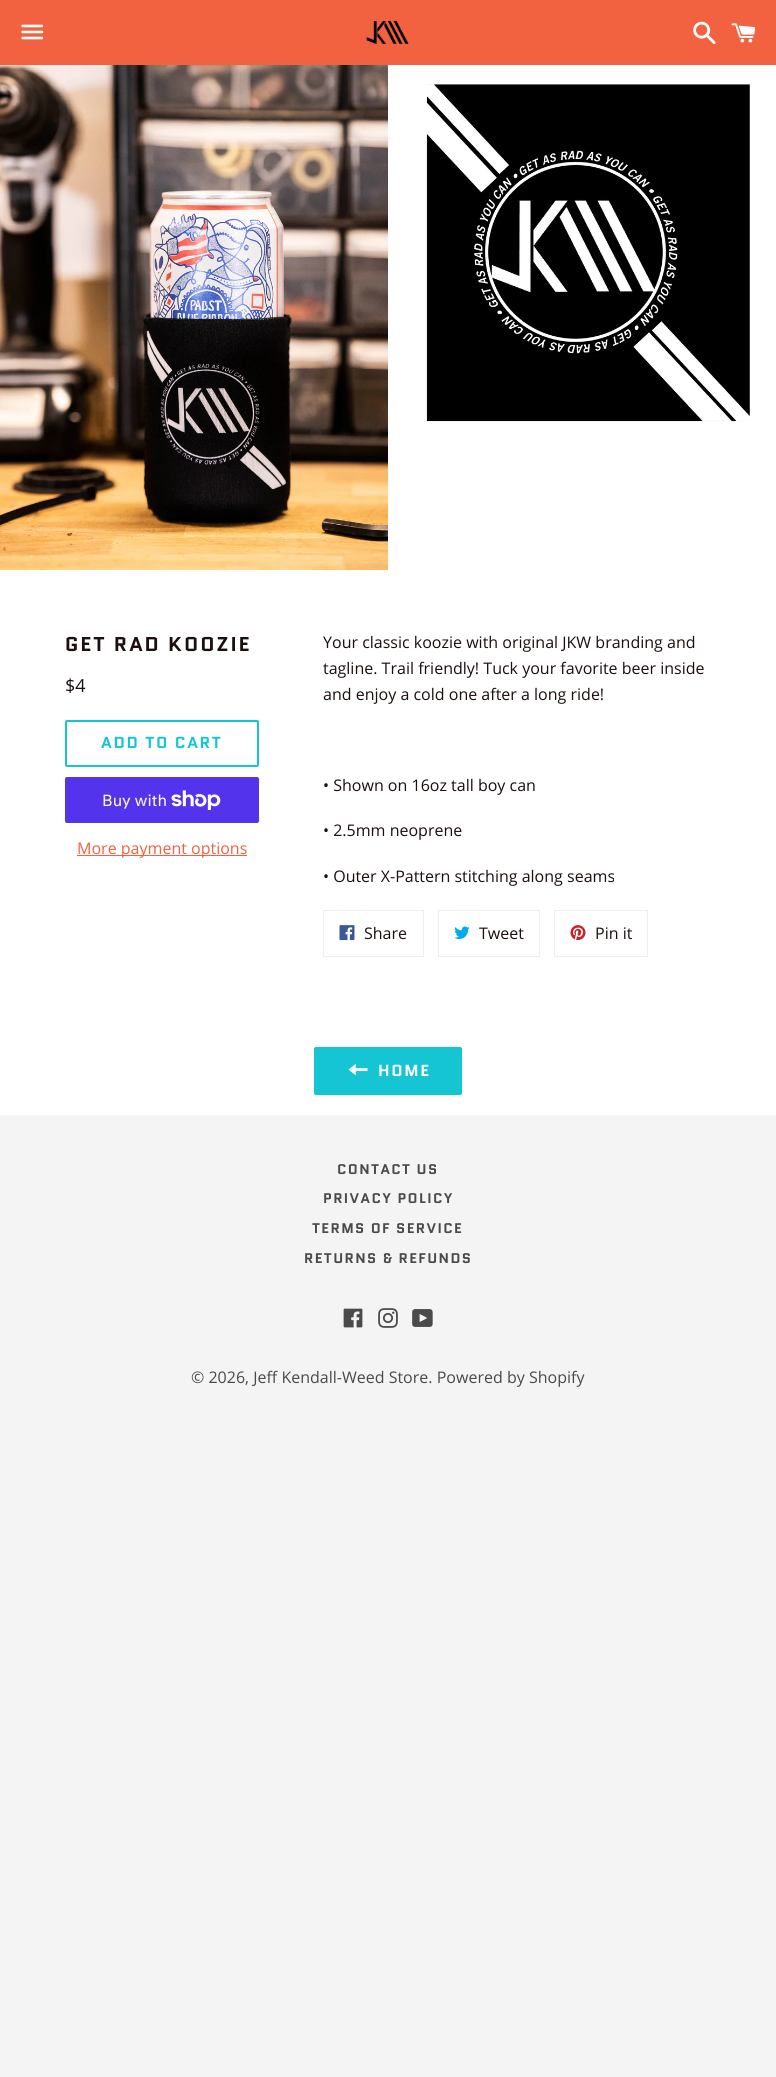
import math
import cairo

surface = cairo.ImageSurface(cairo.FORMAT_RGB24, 776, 2077)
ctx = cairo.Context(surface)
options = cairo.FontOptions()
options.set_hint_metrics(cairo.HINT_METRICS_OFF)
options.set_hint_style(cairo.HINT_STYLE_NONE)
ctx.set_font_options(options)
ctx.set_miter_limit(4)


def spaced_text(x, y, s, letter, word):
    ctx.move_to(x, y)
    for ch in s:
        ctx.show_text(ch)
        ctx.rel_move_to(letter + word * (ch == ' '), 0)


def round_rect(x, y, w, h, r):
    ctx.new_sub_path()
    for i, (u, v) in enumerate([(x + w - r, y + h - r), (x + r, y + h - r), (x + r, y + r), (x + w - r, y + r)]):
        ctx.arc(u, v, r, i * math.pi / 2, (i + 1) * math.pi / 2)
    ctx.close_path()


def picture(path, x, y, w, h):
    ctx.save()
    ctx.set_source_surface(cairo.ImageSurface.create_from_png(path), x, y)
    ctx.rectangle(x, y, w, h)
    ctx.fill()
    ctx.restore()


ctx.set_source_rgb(0.957, 0.957, 0.957)
ctx.paint()
ctx.set_source_rgb(1, 1, 1)
ctx.rectangle(0, 65, 776, 1050)
ctx.fill()
ctx.set_source_rgb(0.949, 0.384, 0.255)
ctx.rectangle(0, 0, 776, 65)
ctx.fill()
picture("img1.png", 21, 24, 23, 16)
picture("img2.png", 366, 21, 43, 23)
picture("img3.png", 693, 21, 23, 24)
picture("img4.png", 731, 23, 25, 20)
picture("img5.png", 0, 65, 388, 505)
picture("img6.png", 426, 84, 324, 338)
ctx.select_font_face("Quantico", cairo.FONT_SLANT_NORMAL, cairo.FONT_WEIGHT_BOLD)
ctx.set_font_size(20)
ctx.set_source_rgb(0.106, 0.063, 0.055)
spaced_text(65, 651, "GET RAD KOOZIE", 2, 0)
ctx.select_font_face("Open Sans")
ctx.set_font_size(18)
ctx.move_to(65, 692)
ctx.show_text("$4")
round_rect(66, 721, 192, 45, 1)
ctx.set_source_rgb(0.086, 0.773, 0.831)
ctx.stroke()
ctx.select_font_face("Quantico", cairo.FONT_SLANT_NORMAL, cairo.FONT_WEIGHT_BOLD)
ctx.set_font_size(16)
spaced_text(101, 748, "ADD TO CART", 1.6, 0)
ctx.set_source_rgb(0.329, 0.2, 0.922)
round_rect(65, 777, 194, 46, 2)
ctx.fill()
ctx.select_font_face("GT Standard")
ctx.set_source_rgb(1, 1, 1)
ctx.move_to(102, 806)
ctx.show_text("Buy with")
picture("img7.png", 171, 790, 50, 20)
ctx.set_source_rgb(0.949, 0.384, 0.255)
ctx.rectangle(77, 855, 170, 1)
ctx.fill()
ctx.select_font_face("Open Sans")
ctx.move_to(77, 854)
ctx.show_text("More payment options")
ctx.set_source_rgb(0.106, 0.063, 0.055)
ctx.move_to(323, 648)
ctx.show_text("Your classic koozie with original JKW branding and")
ctx.move_to(323, 674)
ctx.show_text("tagline. Trail friendly! Tuck your favorite beer inside")
ctx.move_to(323, 700)
ctx.show_text("and enjoy a cold one after a long ride!")
ctx.move_to(323, 791)
ctx.show_text("• Shown on 16oz tall boy can")
ctx.move_to(323, 836)
ctx.show_text("• 2.5mm neoprene")
ctx.move_to(323, 882)
ctx.show_text("• Outer X-Pattern stitching along seams")
ctx.rectangle(323.5, 910.5, 100, 46)
ctx.set_source_rgb(0.925, 0.937, 0.945)
ctx.set_line_width(1)
ctx.stroke()
picture("img8.png", 339, 925, 16, 16)
ctx.set_source_rgb(0.106, 0.063, 0.055)
ctx.move_to(364, 939)
ctx.show_text("Share")
ctx.rectangle(438.5, 910.5, 101, 46)
ctx.set_source_rgb(0.925, 0.937, 0.945)
ctx.stroke()
picture("img9.png", 454, 926, 16, 13)
ctx.set_source_rgb(0.106, 0.063, 0.055)
ctx.move_to(479, 939)
ctx.show_text("Tweet")
ctx.rectangle(554.5, 910.5, 93, 46)
ctx.set_source_rgb(0.925, 0.937, 0.945)
ctx.stroke()
picture("img10.png", 570, 925, 16, 16)
ctx.set_source_rgb(0.106, 0.063, 0.055)
ctx.move_to(595, 939)
ctx.show_text("Pin it")
ctx.set_source_rgb(0.086, 0.773, 0.831)
round_rect(314, 1047, 148, 48, 2)
ctx.fill()
picture("img11.png", 348, 1063, 20, 13)
ctx.select_font_face("Quantico", cairo.FONT_SLANT_NORMAL, cairo.FONT_WEIGHT_BOLD)
ctx.set_source_rgb(1, 1, 1)
spaced_text(378, 1076, "HOME", 1.6, 0)
ctx.set_font_size(14)
ctx.set_source_rgb(0.29, 0.29, 0.29)
spaced_text(337, 1174, "CONTACT US", 1.4, 0)
spaced_text(323, 1203, "PRIVACY POLICY", 1.4, 0)
spaced_text(312, 1233, "TERMS OF SERVICE", 1.4, 0)
spaced_text(304, 1263, "RETURNS & REFUNDS", 1.4, 0)
picture("img12.png", 343, 1308, 20, 20)
picture("img13.png", 378, 1308, 20, 20)
picture("img14.png", 412, 1309, 21, 18)
ctx.select_font_face("Open Sans")
ctx.set_font_size(16)
ctx.move_to(191, 1383)
ctx.show_text("© 2026, Jeff Kendall-Weed Store. Powered by Shopify")
surface.write_to_png("page.png")
